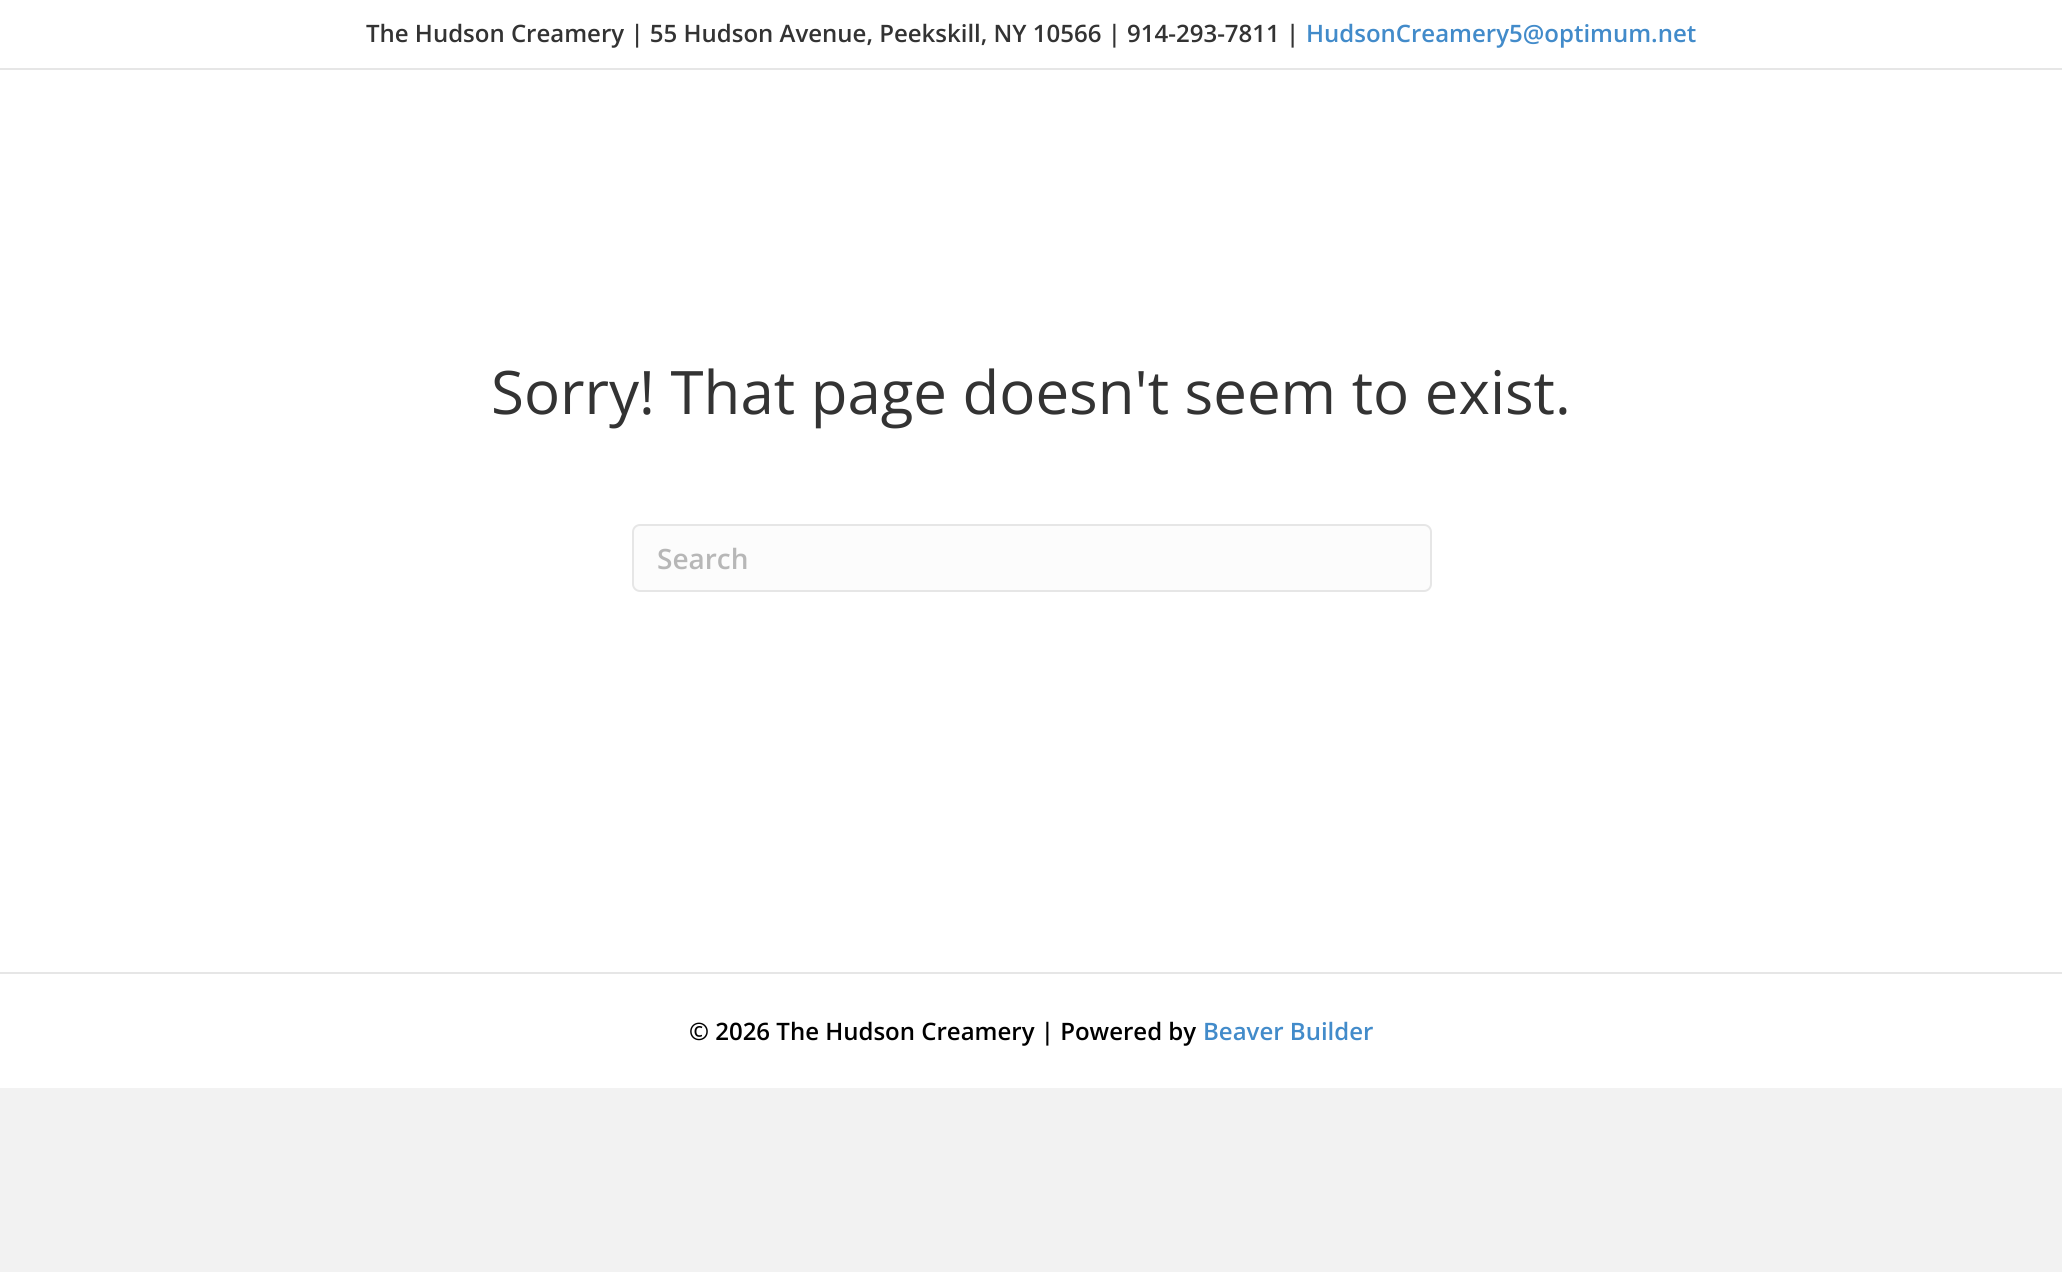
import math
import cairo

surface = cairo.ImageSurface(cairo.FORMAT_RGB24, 2062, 1272)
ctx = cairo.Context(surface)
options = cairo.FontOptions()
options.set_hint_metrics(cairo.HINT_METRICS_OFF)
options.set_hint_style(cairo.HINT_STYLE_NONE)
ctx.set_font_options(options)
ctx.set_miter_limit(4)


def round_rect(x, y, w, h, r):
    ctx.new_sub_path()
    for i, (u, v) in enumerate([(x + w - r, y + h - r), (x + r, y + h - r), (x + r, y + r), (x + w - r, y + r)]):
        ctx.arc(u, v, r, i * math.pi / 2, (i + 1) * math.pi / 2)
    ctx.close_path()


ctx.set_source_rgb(0.949, 0.949, 0.949)
ctx.paint()
ctx.set_source_rgb(1, 1, 1)
ctx.rectangle(0, 0, 2062, 68)
ctx.fill()
ctx.set_source_rgb(0.902, 0.902, 0.902)
ctx.rectangle(0, 68, 2062, 2)
ctx.fill()
ctx.select_font_face("Open Sans SemiBold")
ctx.set_font_size(24)
ctx.set_source_rgb(0.2, 0.2, 0.2)
ctx.move_to(366, 42)
ctx.show_text("The Hudson Creamery | 55 Hudson Avenue, Peekskill, NY 10566 | 914-293-7811 |")
ctx.set_source_rgb(0.259, 0.545, 0.792)
ctx.move_to(1306, 42)
ctx.show_text("HudsonCreamery5@optimum.net")
ctx.set_source_rgb(1, 1, 1)
ctx.rectangle(0, 70, 2062, 902)
ctx.fill()
ctx.select_font_face("Open Sans")
ctx.set_font_size(60)
ctx.set_source_rgb(0.2, 0.2, 0.2)
ctx.move_to(491, 414)
ctx.show_text("Sorry! That page doesn't seem to exist.")
ctx.set_source_rgb(0.988, 0.988, 0.988)
round_rect(633, 525, 798, 66, 7)
ctx.fill_preserve()
ctx.set_source_rgb(0.902, 0.902, 0.902)
ctx.stroke()
ctx.select_font_face("Open Sans SemiBold")
ctx.set_font_size(28)
ctx.set_source_rgb(0.718, 0.718, 0.718)
ctx.move_to(657, 569)
ctx.show_text("Search")
ctx.set_source_rgb(1, 1, 1)
ctx.rectangle(0, 974, 2062, 114)
ctx.fill()
ctx.set_source_rgb(0.902, 0.902, 0.902)
ctx.rectangle(0, 972, 2062, 2)
ctx.fill()
ctx.set_font_size(24)
ctx.set_source_rgb(0, 0, 0)
ctx.move_to(689, 1040)
ctx.show_text("© 2026 The Hudson Creamery | Powered by")
ctx.set_source_rgb(0.259, 0.545, 0.792)
ctx.move_to(1203, 1040)
ctx.show_text("Beaver Builder")
surface.write_to_png("page.png")
